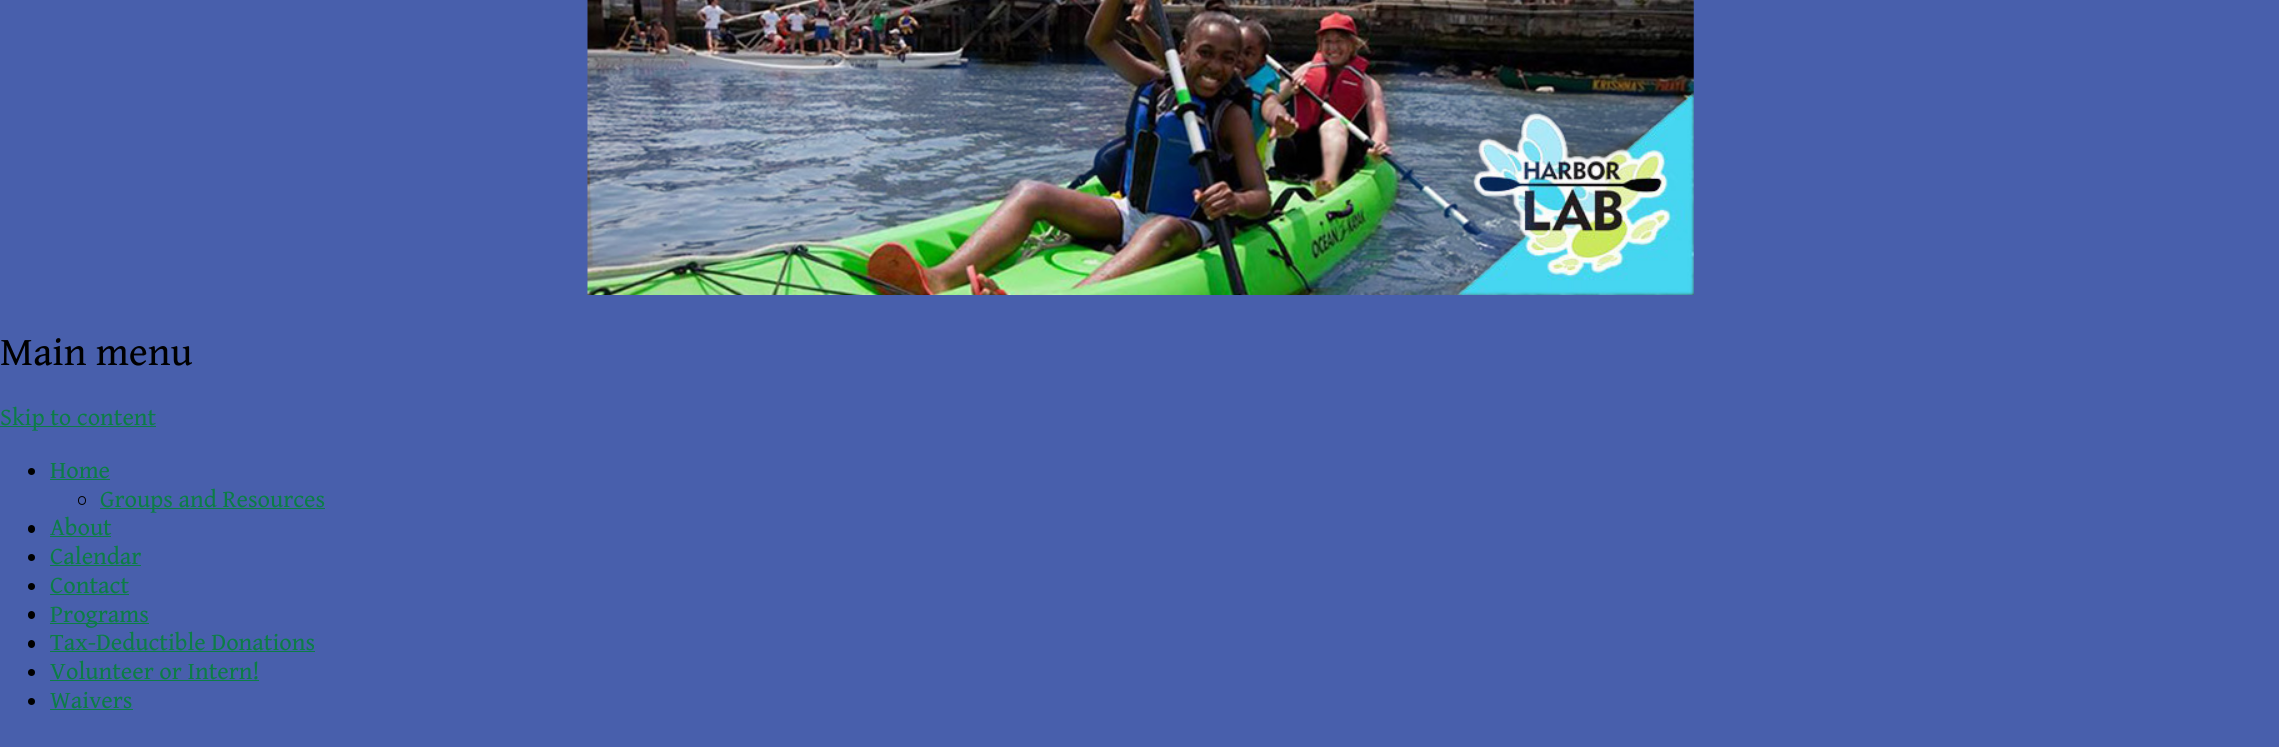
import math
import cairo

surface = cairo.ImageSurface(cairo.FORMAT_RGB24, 2279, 747)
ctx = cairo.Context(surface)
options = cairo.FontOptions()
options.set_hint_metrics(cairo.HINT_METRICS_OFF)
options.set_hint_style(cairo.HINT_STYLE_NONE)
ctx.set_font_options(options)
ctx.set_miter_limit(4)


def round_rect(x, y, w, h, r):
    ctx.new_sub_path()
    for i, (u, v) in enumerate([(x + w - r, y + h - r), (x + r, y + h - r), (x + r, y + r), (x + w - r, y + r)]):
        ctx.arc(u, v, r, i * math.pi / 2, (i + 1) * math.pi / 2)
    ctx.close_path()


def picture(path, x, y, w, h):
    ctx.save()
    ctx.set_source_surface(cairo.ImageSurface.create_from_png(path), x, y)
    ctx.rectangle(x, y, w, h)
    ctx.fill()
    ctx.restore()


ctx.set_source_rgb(0.282, 0.373, 0.675)
ctx.paint()
picture("img1.png", 587, 0, 1107, 295)
ctx.select_font_face("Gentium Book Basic")
ctx.set_font_size(40.5)
ctx.set_source_rgb(0, 0, 0)
ctx.move_to(0, 365)
ctx.show_text("Main menu")
ctx.set_source_rgb(0.047, 0.49, 0.275)
ctx.rectangle(0, 426, 156, 1)
ctx.fill()
ctx.set_font_size(24.4)
ctx.move_to(0, 425)
ctx.show_text("Skip to content")
ctx.set_source_rgb(0, 0, 0)
ctx.new_path()
ctx.arc(31.5, 471.5, 3.5, 0, 2 * math.pi)
ctx.fill()
ctx.set_source_rgb(0.047, 0.49, 0.275)
ctx.move_to(50, 478)
ctx.show_text("Home")
ctx.rectangle(50, 479, 60, 1)
ctx.fill()
round_rect(78.5, 496.5, 7, 8, 3.5)
ctx.set_source_rgb(0, 0, 0)
ctx.set_line_width(1)
ctx.stroke()
ctx.set_source_rgb(0.047, 0.49, 0.275)
ctx.rectangle(100, 508, 225, 1)
ctx.fill()
ctx.move_to(100, 507)
ctx.show_text("Groups and Resources")
ctx.set_source_rgb(0, 0, 0)
round_rect(28, 525, 7, 8, 3.5)
ctx.fill()
ctx.set_source_rgb(0.047, 0.49, 0.275)
ctx.move_to(50, 535)
ctx.show_text("About")
ctx.rectangle(50, 536, 61, 1)
ctx.fill()
ctx.set_source_rgb(0, 0, 0)
ctx.arc(31.5, 557.5, 3.5, 0, 2 * math.pi)
ctx.fill()
ctx.set_source_rgb(0.047, 0.49, 0.275)
ctx.move_to(50, 564)
ctx.show_text("Calendar")
ctx.rectangle(50, 565, 91, 1)
ctx.fill()
ctx.set_source_rgb(0, 0, 0)
ctx.arc(31.5, 586.5, 3.5, 0, 2 * math.pi)
ctx.fill()
ctx.set_source_rgb(0.047, 0.49, 0.275)
ctx.move_to(50, 593)
ctx.show_text("Contact")
ctx.rectangle(50, 594, 79, 1)
ctx.fill()
ctx.set_source_rgb(0, 0, 0)
round_rect(28, 611, 7, 8, 3.5)
ctx.fill()
ctx.set_source_rgb(0.047, 0.49, 0.275)
ctx.rectangle(50, 623, 99, 1)
ctx.fill()
ctx.move_to(50, 622)
ctx.show_text("Programs")
ctx.set_source_rgb(0, 0, 0)
round_rect(28, 640, 7, 8, 3.5)
ctx.fill()
ctx.set_source_rgb(0.047, 0.49, 0.275)
ctx.move_to(50, 650)
ctx.show_text("Tax-Deductible Donations")
ctx.rectangle(50, 651, 265, 1)
ctx.fill()
ctx.set_source_rgb(0, 0, 0)
ctx.arc(31.5, 672.5, 3.5, 0, 2 * math.pi)
ctx.fill()
ctx.set_source_rgb(0.047, 0.49, 0.275)
ctx.move_to(50, 679)
ctx.show_text("Volunteer or Intern!")
ctx.rectangle(50, 680, 209, 1)
ctx.fill()
ctx.set_source_rgb(0, 0, 0)
ctx.arc(31.5, 701.5, 3.5, 0, 2 * math.pi)
ctx.fill()
ctx.set_source_rgb(0.047, 0.49, 0.275)
ctx.move_to(50, 708)
ctx.show_text("Waivers")
ctx.rectangle(50, 709, 83, 1)
ctx.fill()
surface.write_to_png("page.png")
